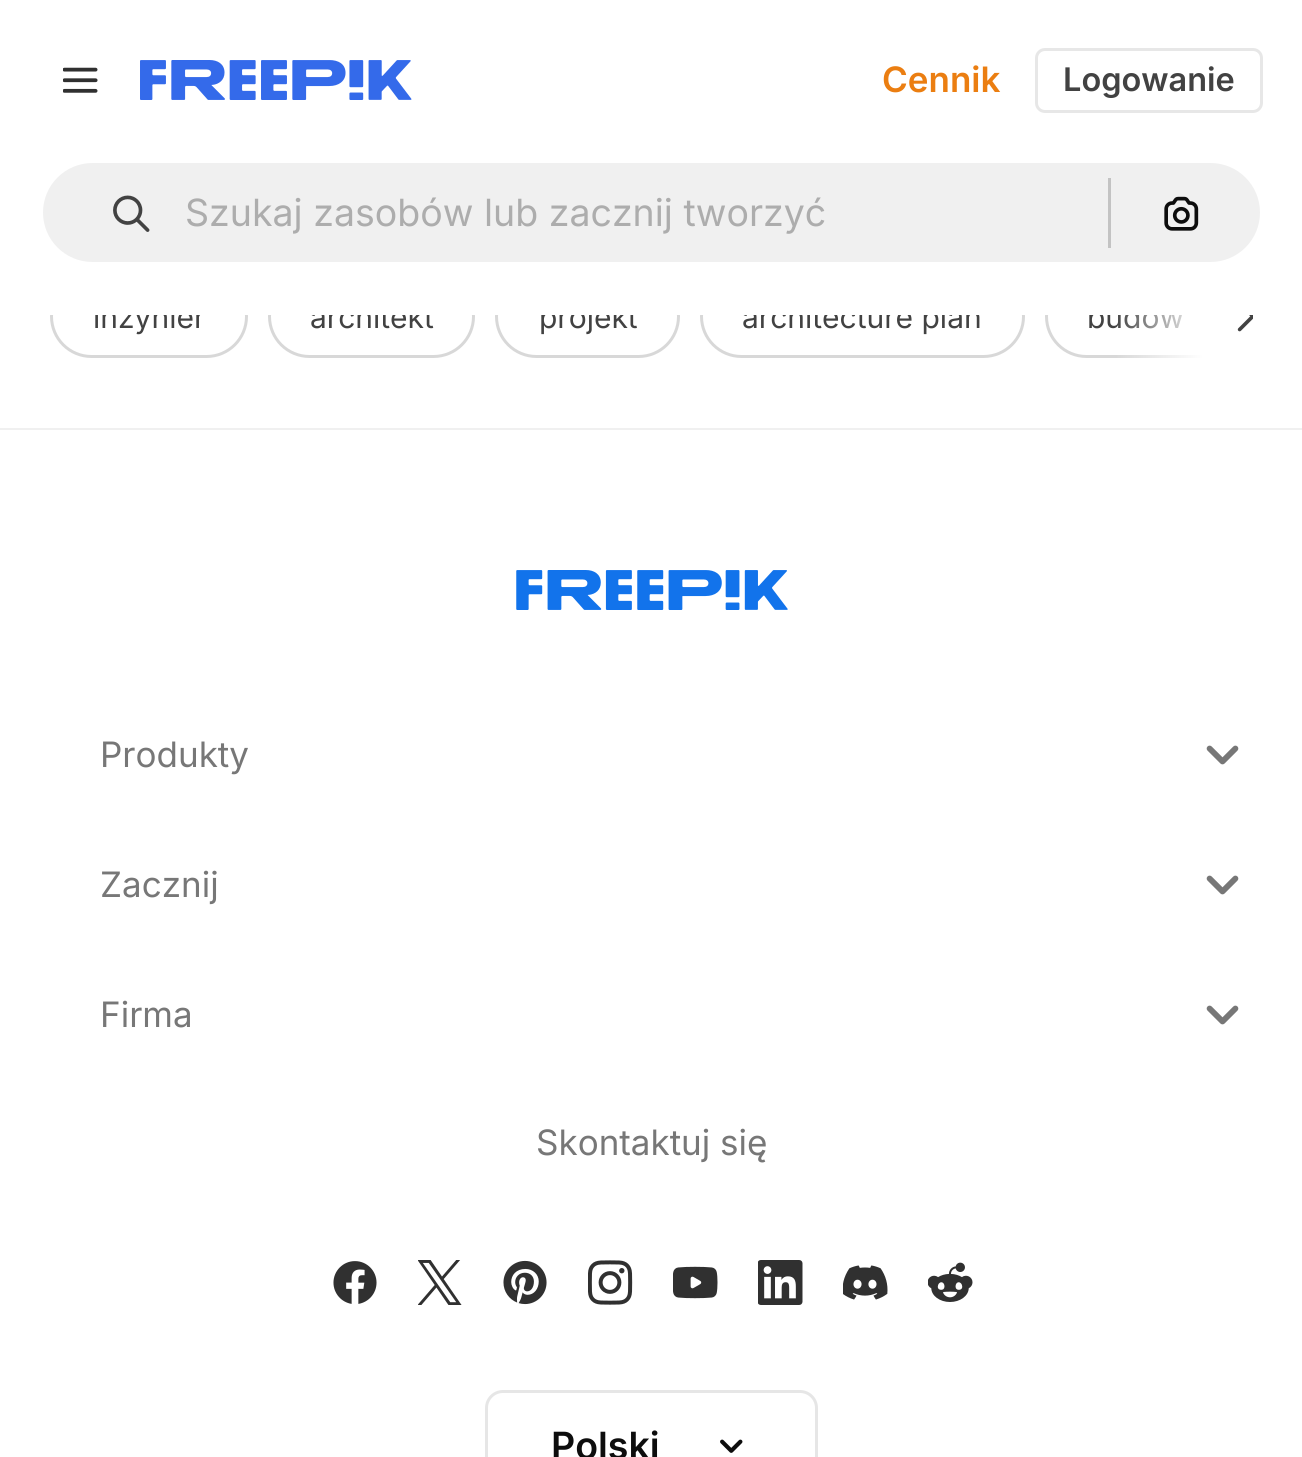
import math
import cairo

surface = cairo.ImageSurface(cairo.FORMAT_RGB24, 1302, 1457)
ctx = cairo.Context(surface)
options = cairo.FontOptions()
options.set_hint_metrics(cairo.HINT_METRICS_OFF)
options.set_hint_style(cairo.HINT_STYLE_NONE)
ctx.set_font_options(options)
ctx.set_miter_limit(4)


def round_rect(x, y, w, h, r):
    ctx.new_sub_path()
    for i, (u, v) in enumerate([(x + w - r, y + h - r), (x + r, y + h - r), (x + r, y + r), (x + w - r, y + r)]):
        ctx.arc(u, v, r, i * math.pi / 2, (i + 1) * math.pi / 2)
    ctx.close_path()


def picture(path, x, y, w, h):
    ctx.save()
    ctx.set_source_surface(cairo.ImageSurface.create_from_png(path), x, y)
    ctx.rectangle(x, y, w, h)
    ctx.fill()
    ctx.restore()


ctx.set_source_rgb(1, 1, 1)
ctx.paint()
round_rect(51.5, 276.5, 195, 80, 40)
ctx.set_source_rgb(0.847, 0.847, 0.847)
ctx.set_line_width(3)
ctx.stroke()
ctx.select_font_face("Inter")
ctx.set_font_size(30)
ctx.set_source_rgb(0.259, 0.259, 0.259)
ctx.move_to(93, 328)
ctx.show_text("inżynier")
round_rect(269.5, 276.5, 204, 80, 40)
ctx.set_source_rgb(0.847, 0.847, 0.847)
ctx.stroke()
ctx.set_source_rgb(0.259, 0.259, 0.259)
ctx.move_to(310, 328)
ctx.show_text("architekt")
round_rect(496.5, 276.5, 182, 80, 40)
ctx.set_source_rgb(0.847, 0.847, 0.847)
ctx.stroke()
ctx.set_source_rgb(0.259, 0.259, 0.259)
ctx.move_to(539, 328)
ctx.show_text("projekt")
round_rect(701.5, 276.5, 322, 80, 40)
ctx.set_source_rgb(0.847, 0.847, 0.847)
ctx.stroke()
ctx.set_source_rgb(0.259, 0.259, 0.259)
ctx.move_to(742, 328)
ctx.show_text("architecture plan")
round_rect(1046.5, 276.5, 195, 80, 40)
ctx.set_source_rgb(0.847, 0.847, 0.847)
ctx.stroke()
ctx.set_source_rgb(0.259, 0.259, 0.259)
ctx.move_to(1087, 328)
ctx.show_text("budow")
ctx.set_source_rgb(1, 1, 1)
ctx.rectangle(50, 275, 1193, 40)
ctx.fill()
picture("img1.png", 63, 67, 35, 26)
picture("img2.png", 140, 60, 272, 40)
ctx.select_font_face("Inter SemiBold")
ctx.set_font_size(35)
ctx.set_source_rgb(0.918, 0.494, 0.067)
ctx.move_to(882, 92)
ctx.show_text("Cennik")
round_rect(1036.5, 49.5, 225, 62, 8.5)
ctx.set_source_rgb(0.906, 0.906, 0.906)
ctx.stroke()
ctx.set_font_size(32.5)
ctx.set_source_rgb(0.259, 0.259, 0.259)
ctx.move_to(1063, 91)
ctx.show_text("Logowanie")
ctx.set_source_rgb(0.941, 0.941, 0.941)
round_rect(41.5, 161.5, 1220, 102, 51)
ctx.fill_preserve()
ctx.set_source_rgb(1, 1, 1)
ctx.stroke()
picture("img3.png", 113, 195, 37, 37)
ctx.select_font_face("Inter")
ctx.set_font_size(37.5)
ctx.set_source_rgb(0.678, 0.678, 0.678)
ctx.move_to(185, 226)
ctx.show_text("Szukaj zasobów lub zacznij tworzyć")
ctx.set_source_rgb(0.765, 0.765, 0.765)
ctx.rectangle(1108, 178, 3, 70)
ctx.fill()
picture("img4.png", 1164, 196, 35, 35)
ctx.set_source_rgb(1, 1, 1)
ctx.rectangle(1203, 315, 40, 43)
ctx.fill()
gradient = cairo.LinearGradient(1203, 316, 1115, 316)
gradient.add_color_stop_rgba(0, 1, 1, 1, 1)
gradient.add_color_stop_rgba(1, 1, 1, 1, 0)
ctx.set_source(gradient)
ctx.rectangle(1117, 315, 86, 43)
ctx.fill()
picture("img5.png", 1237, 315, 16, 17)
ctx.set_source_rgb(0.941, 0.941, 0.941)
ctx.rectangle(0, 428, 1302, 2)
ctx.fill()
picture("img6.png", 516, 570, 272, 40)
ctx.set_font_size(35)
ctx.set_source_rgb(0.467, 0.467, 0.467)
ctx.move_to(100, 767)
ctx.show_text("Produkty")
picture("img7.png", 1206, 745, 33, 20)
ctx.move_to(100, 897)
ctx.show_text("Zacznij")
picture("img7.png", 1206, 875, 33, 20)
ctx.move_to(100, 1027)
ctx.show_text("Firma")
picture("img7.png", 1206, 1005, 33, 20)
ctx.move_to(536, 1155)
ctx.show_text("Skontaktuj się")
picture("img8.png", 333, 1261, 44, 43)
picture("img9.png", 418, 1260, 44, 45)
picture("img10.png", 503, 1260, 44, 45)
picture("img11.png", 588, 1260, 45, 45)
picture("img12.png", 673, 1266, 45, 33)
picture("img13.png", 758, 1260, 45, 45)
picture("img14.png", 843, 1265, 45, 35)
picture("img15.png", 928, 1262, 45, 40)
round_rect(486.5, 1391.5, 330, 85, 16.5)
ctx.set_source_rgb(0.902, 0.902, 0.902)
ctx.stroke()
ctx.select_font_face("Inter SemiBold")
ctx.set_font_size(37.5)
ctx.set_source_rgb(0.051, 0.051, 0.051)
ctx.move_to(551, 1459)
ctx.show_text("Polski")
picture("img16.png", 720, 1439, 23, 14)
surface.write_to_png("page.png")
